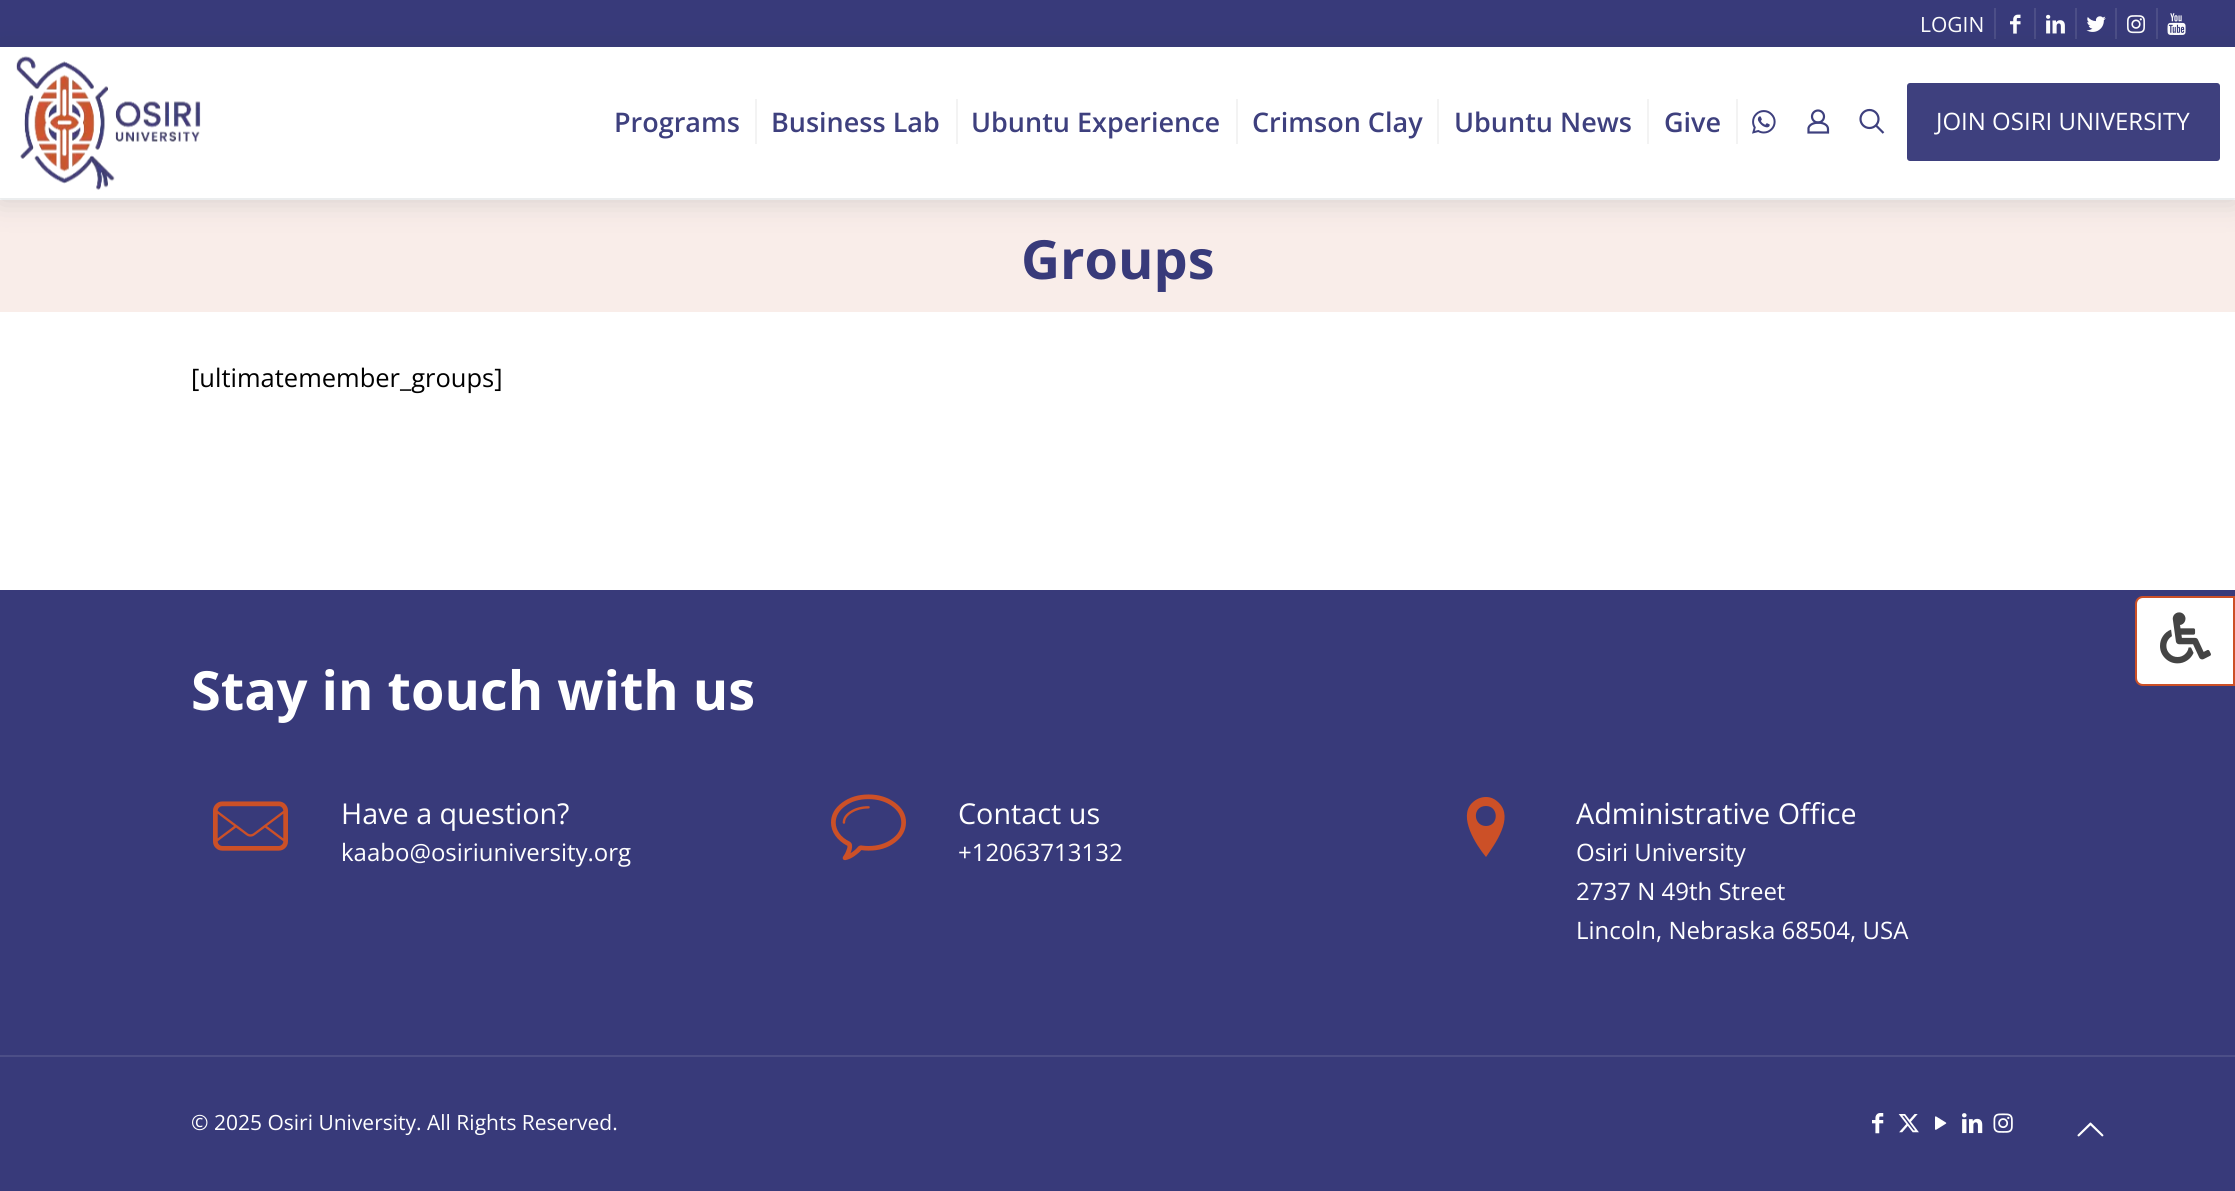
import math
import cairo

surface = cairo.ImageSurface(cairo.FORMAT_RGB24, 2235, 1191)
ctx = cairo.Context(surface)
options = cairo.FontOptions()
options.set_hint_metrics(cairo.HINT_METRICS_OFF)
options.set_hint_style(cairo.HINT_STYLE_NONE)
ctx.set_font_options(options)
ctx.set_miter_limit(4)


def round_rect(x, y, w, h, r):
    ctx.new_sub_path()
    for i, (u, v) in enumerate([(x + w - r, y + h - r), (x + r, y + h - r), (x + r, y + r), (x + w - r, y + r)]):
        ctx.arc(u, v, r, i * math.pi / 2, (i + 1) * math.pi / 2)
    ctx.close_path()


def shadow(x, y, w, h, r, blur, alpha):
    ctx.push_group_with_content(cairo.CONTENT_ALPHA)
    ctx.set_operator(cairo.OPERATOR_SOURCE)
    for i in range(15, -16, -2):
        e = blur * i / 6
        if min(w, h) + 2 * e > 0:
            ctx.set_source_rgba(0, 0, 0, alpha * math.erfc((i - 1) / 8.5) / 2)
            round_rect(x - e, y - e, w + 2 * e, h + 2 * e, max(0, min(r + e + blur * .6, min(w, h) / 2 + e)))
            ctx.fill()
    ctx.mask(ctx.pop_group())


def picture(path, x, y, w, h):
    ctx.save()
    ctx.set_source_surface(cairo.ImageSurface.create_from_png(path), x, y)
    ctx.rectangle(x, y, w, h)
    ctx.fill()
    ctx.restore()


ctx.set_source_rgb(1, 1, 1)
ctx.paint()
ctx.set_source_rgb(0.22, 0.227, 0.478)
ctx.rectangle(0, 0, 2235, 47)
ctx.fill()
ctx.set_source_rgb(0.298, 0.306, 0.529)
ctx.rectangle(1994, 8, 2, 31)
ctx.fill()
ctx.select_font_face("Open Sans")
ctx.set_font_size(21)
ctx.set_source_rgb(1, 1, 1)
ctx.move_to(1920, 32)
ctx.show_text("LOGIN")
ctx.set_source_rgb(0.298, 0.306, 0.529)
ctx.rectangle(2034, 8, 2, 31)
ctx.fill()
picture("img1.png", 2010, 14, 11, 20)
ctx.rectangle(2075, 8, 2, 31)
ctx.fill()
picture("img2.png", 2046, 14, 19, 20)
ctx.rectangle(2115, 8, 2, 31)
ctx.fill()
picture("img3.png", 2086, 16, 20, 16)
ctx.rectangle(2156, 8, 2, 31)
ctx.fill()
picture("img4.png", 2127, 15, 18, 19)
picture("img5.png", 2167, 13, 19, 22)
ctx.set_source_rgb(0.976, 0.929, 0.914)
ctx.rectangle(0, 200, 2235, 112)
ctx.fill()
ctx.save()
ctx.set_fill_rule(cairo.FILL_RULE_EVEN_ODD)
ctx.new_path()
ctx.move_to(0, 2)
ctx.line_to(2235, 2)
ctx.line_to(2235, 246)
ctx.line_to(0, 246)
ctx.close_path()
ctx.move_to(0, 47)
ctx.line_to(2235, 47)
ctx.line_to(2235, 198)
ctx.line_to(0, 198)
ctx.close_path()
ctx.clip()
ctx.set_source_rgb(0.18, 0.239, 0.286)
shadow(0, 48, 2235, 152, 0, 15, 0.19)
ctx.restore()
picture("img6.png", 16, 56, 185, 134)
ctx.set_source_rgb(0.953, 0.953, 0.953)
ctx.rectangle(755, 99, 2, 45)
ctx.fill()
ctx.select_font_face("Open Sans SemiBold")
ctx.set_font_size(27)
ctx.set_source_rgb(0.243, 0.251, 0.494)
ctx.move_to(614, 132)
ctx.show_text("Programs")
ctx.set_source_rgb(0.953, 0.953, 0.953)
ctx.rectangle(956, 99, 2, 45)
ctx.fill()
ctx.set_source_rgb(0.243, 0.251, 0.494)
ctx.move_to(771, 132)
ctx.show_text("Business Lab")
ctx.set_source_rgb(0.953, 0.953, 0.953)
ctx.rectangle(1236, 99, 2, 45)
ctx.fill()
ctx.set_source_rgb(0.243, 0.251, 0.494)
ctx.move_to(971, 132)
ctx.show_text("Ubuntu Experience")
ctx.set_source_rgb(0.953, 0.953, 0.953)
ctx.rectangle(1437, 99, 2, 45)
ctx.fill()
ctx.set_source_rgb(0.243, 0.251, 0.494)
ctx.move_to(1252, 132)
ctx.show_text("Crimson Clay")
ctx.set_source_rgb(0.953, 0.953, 0.953)
ctx.rectangle(1647, 99, 2, 45)
ctx.fill()
ctx.set_source_rgb(0.243, 0.251, 0.494)
ctx.move_to(1454, 132)
ctx.show_text("Ubuntu News")
ctx.set_source_rgb(0.953, 0.953, 0.953)
ctx.rectangle(1736, 99, 2, 45)
ctx.fill()
ctx.set_source_rgb(0.243, 0.251, 0.494)
ctx.move_to(1664, 132)
ctx.show_text("Give")
picture("img7.png", 1752, 110, 24, 24)
ctx.arc(1818, 116.5, 6, 0, 2 * math.pi)
ctx.set_line_width(2.2)
ctx.stroke()
ctx.new_path()
ctx.move_to(1828, 129)
ctx.line_to(1828, 132.5)
ctx.line_to(1808.5, 132.5)
ctx.line_to(1808.5, 128)
ctx.curve_to(1810.5, 120.5, 1828, 121, 1828, 129)
ctx.close_path()
ctx.stroke()
ctx.arc(1869.5, 119, 9, 0, 2 * math.pi)
ctx.stroke()
ctx.new_path()
ctx.move_to(1876, 125.5)
ctx.line_to(1883.5, 133)
ctx.stroke()
round_rect(1907, 83, 313, 78, 3)
ctx.fill()
ctx.select_font_face("Open Sans")
ctx.set_font_size(24)
ctx.set_source_rgb(1, 1, 1)
ctx.move_to(1936, 130)
ctx.show_text("JOIN OSIRI UNIVERSITY")
ctx.select_font_face("Open Sans", cairo.FONT_SLANT_NORMAL, cairo.FONT_WEIGHT_BOLD)
ctx.set_font_size(54)
ctx.set_source_rgb(0.22, 0.227, 0.478)
ctx.move_to(1021, 279)
ctx.show_text("Groups")
ctx.select_font_face("Open Sans")
ctx.set_font_size(25.5)
ctx.set_source_rgb(0, 0, 0)
ctx.move_to(191, 387)
ctx.show_text("[ultimatemember_groups]")
ctx.set_source_rgb(0.22, 0.227, 0.478)
ctx.rectangle(0, 590, 2235, 601)
ctx.fill()
ctx.select_font_face("Open Sans", cairo.FONT_SLANT_NORMAL, cairo.FONT_WEIGHT_BOLD)
ctx.set_font_size(54)
ctx.set_source_rgb(1, 1, 1)
ctx.move_to(191, 710)
ctx.show_text("Stay in touch with us")
picture("img8.png", 213, 801, 75, 50)
ctx.select_font_face("Open Sans")
ctx.set_font_size(28.75)
ctx.move_to(341, 824)
ctx.show_text("Have a question?")
ctx.set_font_size(24)
ctx.move_to(341, 861)
ctx.show_text("kaabo@osiriuniversity.org")
picture("img9.png", 831, 794, 75, 67)
ctx.set_font_size(28.75)
ctx.move_to(958, 824)
ctx.show_text("Contact us")
ctx.set_font_size(24)
ctx.move_to(958, 861)
ctx.show_text("+12063713132")
ctx.set_source_rgb(0.8, 0.314, 0.153)
ctx.new_path()
ctx.move_to(1486, 797)
ctx.curve_to(1491, 797, 1495, 799, 1499, 803)
ctx.curve_to(1514, 818, 1495, 844, 1486, 857)
ctx.curve_to(1476, 845, 1458, 817, 1472, 803)
ctx.curve_to(1476, 799, 1481, 797, 1486, 797)
ctx.close_path()
ctx.move_to(1486, 826)
ctx.curve_to(1499, 826, 1499, 806, 1486, 806)
ctx.curve_to(1472, 806, 1473, 826, 1486, 826)
ctx.close_path()
ctx.fill()
ctx.set_font_size(28.75)
ctx.set_source_rgb(1, 1, 1)
ctx.move_to(1576, 824)
ctx.show_text("Administrative Office")
ctx.set_font_size(24)
ctx.move_to(1576, 861)
ctx.show_text("Osiri University")
ctx.move_to(1576, 900)
ctx.show_text("2737 N 49th Street")
ctx.move_to(1576, 939)
ctx.show_text("Lincoln, Nebraska 68504, USA")
ctx.set_source_rgb(0.298, 0.306, 0.529)
ctx.rectangle(0, 1055, 2235, 2)
ctx.fill()
ctx.set_font_size(21)
ctx.set_source_rgb(1, 1, 1)
ctx.move_to(191, 1130)
ctx.show_text("© 2025 Osiri University. All Rights Reserved.")
picture("img10.png", 1872, 1113, 12, 21)
picture("img11.png", 1898, 1114, 21, 19)
picture("img12.png", 1935, 1116, 12, 14)
picture("img13.png", 1962, 1113, 21, 21)
picture("img14.png", 1993, 1113, 20, 20)
ctx.new_path()
ctx.move_to(2143, 597)
ctx.line_to(2234, 597)
ctx.line_to(2234, 685)
ctx.line_to(2143, 685)
ctx.curve_to(2139, 685, 2136, 682, 2136, 678)
ctx.line_to(2136, 604)
ctx.curve_to(2136, 600, 2139, 597, 2143, 597)
ctx.close_path()
ctx.fill_preserve()
ctx.set_source_rgb(0.8, 0.314, 0.153)
ctx.set_line_width(2)
ctx.stroke()
picture("img15.png", 2160, 612, 51, 52)
picture("img16.png", 2077, 1122, 27, 15)
surface.write_to_png("page.png")
